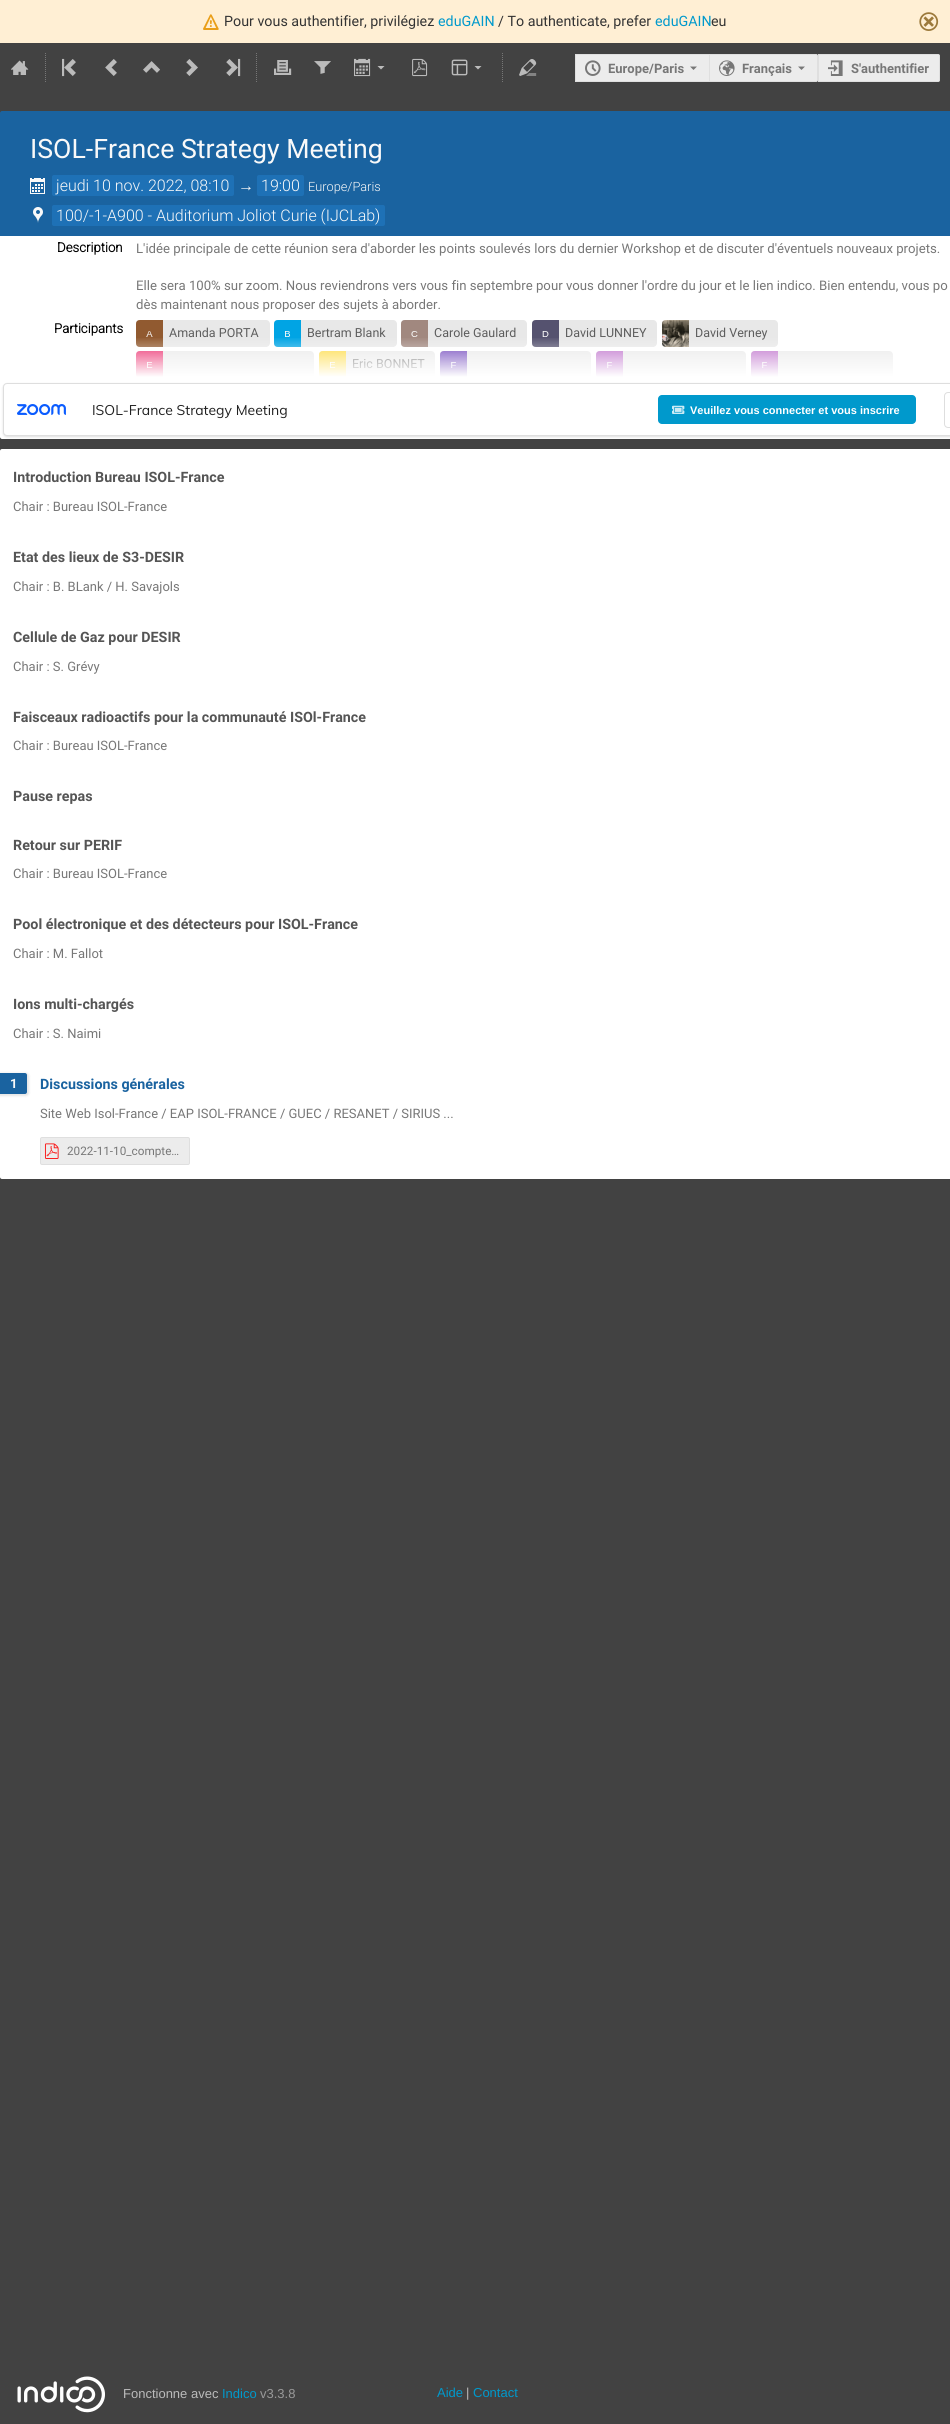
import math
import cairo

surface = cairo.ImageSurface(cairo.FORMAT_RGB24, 950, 2424)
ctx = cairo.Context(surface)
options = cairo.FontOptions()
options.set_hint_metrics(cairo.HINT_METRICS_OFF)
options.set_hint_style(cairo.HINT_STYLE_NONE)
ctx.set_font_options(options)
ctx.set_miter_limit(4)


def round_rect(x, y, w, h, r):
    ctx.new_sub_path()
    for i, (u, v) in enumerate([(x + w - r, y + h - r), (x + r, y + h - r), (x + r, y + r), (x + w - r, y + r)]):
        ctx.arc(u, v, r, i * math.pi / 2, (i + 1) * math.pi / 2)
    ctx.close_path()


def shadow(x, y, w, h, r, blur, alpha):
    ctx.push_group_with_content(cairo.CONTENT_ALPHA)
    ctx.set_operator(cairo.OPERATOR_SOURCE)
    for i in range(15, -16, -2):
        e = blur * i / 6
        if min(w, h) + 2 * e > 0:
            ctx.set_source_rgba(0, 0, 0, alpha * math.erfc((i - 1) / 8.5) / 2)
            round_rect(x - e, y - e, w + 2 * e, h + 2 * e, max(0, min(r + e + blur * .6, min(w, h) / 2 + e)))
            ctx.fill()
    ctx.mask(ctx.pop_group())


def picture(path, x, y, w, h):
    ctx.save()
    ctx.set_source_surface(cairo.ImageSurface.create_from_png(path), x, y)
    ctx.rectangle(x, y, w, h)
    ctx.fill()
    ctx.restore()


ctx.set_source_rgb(0.259, 0.259, 0.259)
ctx.paint()
ctx.set_source_rgb(1, 0.937, 0.831)
ctx.rectangle(0, 0, 950, 43)
ctx.fill()
picture("img1.png", 203, 14, 16, 16)
ctx.select_font_face("Roboto")
ctx.set_font_size(14.3)
ctx.set_source_rgb(0.2, 0.2, 0.2)
ctx.move_to(224, 26)
ctx.show_text("Pour vous authentifier, privilégiez")
ctx.set_source_rgb(0, 0.6, 0.8)
ctx.move_to(438, 26)
ctx.show_text("eduGAIN")
ctx.set_source_rgb(0.2, 0.2, 0.2)
ctx.move_to(498, 26)
ctx.show_text("/ To authenticate, prefer")
ctx.set_source_rgb(0, 0.6, 0.8)
ctx.move_to(655, 26)
ctx.show_text("eduGAIN")
ctx.set_source_rgb(0.2, 0.2, 0.2)
ctx.move_to(711, 26)
ctx.show_text("eu")
picture("img2.png", 919, 12, 20, 19)
picture("img3.png", 11, 60, 18, 15)
ctx.new_path()
ctx.move_to(45.5, 53)
ctx.line_to(45.5, 83)
ctx.set_source_rgb(0.467, 0.467, 0.467)
ctx.set_line_width(1)
ctx.set_dash([1, 1])
ctx.stroke()
picture("img4.png", 62, 58, 14, 19)
picture("img5.png", 105, 59, 12, 17)
picture("img6.png", 143, 61, 17, 12)
picture("img7.png", 186, 59, 12, 17)
picture("img8.png", 226, 58, 15, 19)
ctx.new_path()
ctx.move_to(256.5, 53)
ctx.line_to(256.5, 83)
ctx.stroke()
picture("img9.png", 274, 60, 18, 15)
picture("img10.png", 314, 61, 17, 13)
picture("img11.png", 354, 58, 17, 19)
ctx.set_source_rgb(0.733, 0.733, 0.733)
ctx.new_path()
ctx.move_to(377.5, 66)
ctx.line_to(381, 69.5)
ctx.line_to(384.5, 66)
ctx.close_path()
ctx.fill()
picture("img12.png", 412, 58, 16, 19)
picture("img13.png", 451, 59, 17, 17)
ctx.new_path()
ctx.move_to(474.5, 66)
ctx.line_to(478, 69.5)
ctx.line_to(481.5, 66)
ctx.close_path()
ctx.fill()
ctx.new_path()
ctx.move_to(502.5, 53)
ctx.line_to(502.5, 83)
ctx.set_source_rgb(0.467, 0.467, 0.467)
ctx.stroke()
picture("img14.png", 519, 59, 18, 17)
ctx.set_source_rgb(0.925, 0.925, 0.925)
ctx.rectangle(576, 55, 133, 26)
ctx.fill()
ctx.set_source_rgb(0.875, 0.875, 0.875)
ctx.rectangle(575, 54, 134, 1)
ctx.fill()
ctx.rectangle(575, 81, 134, 1)
ctx.fill()
ctx.rectangle(575, 54, 1, 28)
ctx.fill()
picture("img15.png", 585, 60, 16, 16)
ctx.select_font_face("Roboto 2", cairo.FONT_SLANT_NORMAL, cairo.FONT_WEIGHT_BOLD)
ctx.set_font_size(13)
ctx.set_source_rgb(0.467, 0.467, 0.467)
ctx.move_to(608, 73)
ctx.show_text("Europe/Paris")
ctx.new_path()
ctx.move_to(690, 66.5)
ctx.line_to(693.5, 70)
ctx.line_to(697, 66.5)
ctx.close_path()
ctx.fill()
ctx.set_source_rgb(0.925, 0.925, 0.925)
ctx.new_path()
ctx.move_to(709.5, 54.5)
ctx.line_to(816, 54.5)
ctx.curve_to(817, 54.5, 817.5, 55, 817.5, 56)
ctx.line_to(817.5, 80)
ctx.curve_to(817.5, 81, 817, 81.5, 816, 81.5)
ctx.line_to(709.5, 81.5)
ctx.close_path()
ctx.fill_preserve()
ctx.set_source_rgb(0.875, 0.875, 0.875)
ctx.set_dash([])
ctx.stroke()
picture("img16.png", 719, 60, 16, 16)
ctx.set_source_rgb(0.467, 0.467, 0.467)
ctx.move_to(742, 73)
ctx.show_text("Français")
ctx.new_path()
ctx.move_to(798, 66.5)
ctx.line_to(801.5, 70)
ctx.line_to(805, 66.5)
ctx.close_path()
ctx.fill()
ctx.set_source_rgb(0.925, 0.925, 0.925)
ctx.new_path()
ctx.move_to(818.5, 54.5)
ctx.line_to(938, 54.5)
ctx.curve_to(939, 54.5, 939.5, 55, 939.5, 56)
ctx.line_to(939.5, 80)
ctx.curve_to(939.5, 81, 939, 81.5, 938, 81.5)
ctx.line_to(818.5, 81.5)
ctx.close_path()
ctx.fill_preserve()
ctx.set_source_rgb(0.875, 0.875, 0.875)
ctx.stroke()
picture("img17.png", 828, 60, 15, 16)
ctx.set_source_rgb(0.467, 0.467, 0.467)
ctx.move_to(851, 73)
ctx.show_text("S'authentifier")
ctx.set_source_rgb(0.102, 0.388, 0.627)
ctx.new_path()
ctx.move_to(2, 111)
ctx.line_to(950, 111)
ctx.curve_to(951, 111, 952, 112, 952, 113)
ctx.line_to(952, 236)
ctx.line_to(0, 236)
ctx.line_to(0, 113)
ctx.curve_to(0, 112, 1, 111, 2, 111)
ctx.close_path()
ctx.fill()
ctx.select_font_face("Roboto")
ctx.set_font_size(26.7)
ctx.set_source_rgb(0.976, 0.976, 0.976)
ctx.move_to(30, 158)
ctx.show_text("ISOL-France Strategy Meeting")
picture("img18.png", 30, 178, 15, 16)
ctx.set_source_rgb(0.118, 0.443, 0.714)
round_rect(52, 175, 182, 21, 2)
ctx.fill()
ctx.select_font_face("Roboto Light")
ctx.set_font_size(16)
ctx.set_source_rgb(0.976, 0.976, 0.976)
ctx.move_to(56, 191)
ctx.show_text("jeudi 10 nov. 2022, 08:10")
ctx.select_font_face("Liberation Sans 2")
ctx.move_to(238, 191)
ctx.show_text("→")
ctx.set_source_rgb(0.118, 0.443, 0.714)
round_rect(257, 175, 47, 21, 2)
ctx.fill()
ctx.select_font_face("Roboto Light")
ctx.set_source_rgb(0.976, 0.976, 0.976)
ctx.move_to(261, 191)
ctx.show_text("19:00")
ctx.set_font_size(12.75)
ctx.move_to(308, 191)
ctx.show_text("Europe/Paris")
picture("img19.png", 33, 207, 10, 16)
ctx.set_source_rgb(0.118, 0.443, 0.714)
round_rect(52, 205, 333, 21, 2)
ctx.fill()
ctx.set_font_size(16)
ctx.set_source_rgb(0.976, 0.976, 0.976)
ctx.move_to(56, 221)
ctx.show_text("100/-1-A900 - Auditorium Joliot Curie (IJCLab)")
ctx.set_source_rgb(1, 1, 1)
ctx.new_path()
ctx.move_to(0, 236)
ctx.line_to(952, 236)
ctx.line_to(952, 437)
ctx.curve_to(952, 438, 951, 439, 950, 439)
ctx.line_to(2, 439)
ctx.curve_to(1, 439, 0, 438, 0, 437)
ctx.close_path()
ctx.fill()
ctx.select_font_face("Roboto", cairo.FONT_SLANT_NORMAL, cairo.FONT_WEIGHT_BOLD)
ctx.set_font_size(13.2)
ctx.set_source_rgb(0, 0, 0)
ctx.move_to(57, 252)
ctx.show_text("Description")
ctx.select_font_face("Roboto")
ctx.set_source_rgb(0.467, 0.467, 0.467)
ctx.move_to(136, 253)
ctx.show_text("L'idée principale de cette réunion sera d'aborder les points soulevés lors du dernier Workshop et de discuter d'éventuels nouveaux projets.")
ctx.move_to(136, 290)
ctx.show_text("Elle sera 100% sur zoom. Nous reviendrons vers vous fin septembre pour vous donner l'ordre du jour et le lien indico. Bien entendu, vous po")
ctx.move_to(136, 309)
ctx.show_text("dès maintenant nous proposer des sujets à aborder.")
ctx.select_font_face("Roboto", cairo.FONT_SLANT_NORMAL, cairo.FONT_WEIGHT_BOLD)
ctx.set_source_rgb(0, 0, 0)
ctx.move_to(54, 333)
ctx.show_text("Participants")
ctx.set_source_rgb(0.91, 0.91, 0.91)
round_rect(136, 320, 134, 27, 4)
ctx.fill()
picture("img20.png", 136, 320, 27, 27)
ctx.select_font_face("Roboto")
ctx.set_font_size(12.5)
ctx.set_source_rgb(0.365, 0.365, 0.365)
ctx.move_to(169, 337)
ctx.show_text("Amanda PORTA")
ctx.set_source_rgb(0.91, 0.91, 0.91)
round_rect(274, 320, 123, 27, 4)
ctx.fill()
picture("img21.png", 274, 320, 27, 27)
ctx.set_source_rgb(0.365, 0.365, 0.365)
ctx.move_to(307, 337)
ctx.show_text("Bertram Blank")
ctx.set_source_rgb(0.91, 0.91, 0.91)
round_rect(401, 320, 126, 27, 4)
ctx.fill()
picture("img22.png", 401, 320, 27, 27)
ctx.set_source_rgb(0.365, 0.365, 0.365)
ctx.move_to(434, 337)
ctx.show_text("Carole Gaulard")
ctx.set_source_rgb(0.91, 0.91, 0.91)
round_rect(532, 320, 125, 27, 4)
ctx.fill()
picture("img23.png", 532, 320, 27, 27)
ctx.set_source_rgb(0.365, 0.365, 0.365)
ctx.move_to(565, 337)
ctx.show_text("David LUNNEY")
ctx.set_source_rgb(0.91, 0.91, 0.91)
round_rect(662, 320, 116, 27, 4)
ctx.fill()
picture("img24.png", 662, 320, 27, 27)
ctx.set_source_rgb(0.365, 0.365, 0.365)
ctx.move_to(695, 337)
ctx.show_text("David Verney")
ctx.save()
ctx.rectangle(136, 320, 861, 57)
ctx.clip()
ctx.set_source_rgb(0.91, 0.91, 0.91)
round_rect(136, 351, 178, 27, 4)
ctx.fill()
ctx.restore()
picture("img25.png", 136, 351, 27, 26)
ctx.save()
ctx.rectangle(136, 320, 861, 57)
ctx.clip()
ctx.set_source_rgb(0.91, 0.91, 0.91)
round_rect(319, 351, 116, 27, 4)
ctx.fill()
ctx.restore()
picture("img26.png", 319, 351, 27, 26)
ctx.move_to(352, 368)
ctx.show_text("Eric BONNET")
ctx.save()
ctx.rectangle(136, 320, 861, 57)
ctx.clip()
ctx.set_source_rgb(0.91, 0.91, 0.91)
round_rect(440, 351, 151, 27, 4)
ctx.fill()
ctx.restore()
picture("img27.png", 440, 351, 27, 26)
ctx.save()
ctx.rectangle(136, 320, 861, 57)
ctx.clip()
ctx.set_source_rgb(0.91, 0.91, 0.91)
round_rect(596, 351, 150, 27, 4)
ctx.fill()
ctx.restore()
picture("img28.png", 596, 351, 27, 26)
ctx.save()
ctx.rectangle(136, 320, 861, 57)
ctx.clip()
ctx.set_source_rgb(0.91, 0.91, 0.91)
round_rect(751, 351, 142, 27, 4)
ctx.fill()
ctx.restore()
picture("img28.png", 751, 351, 27, 26)
gradient = cairo.LinearGradient(567, 337, 567, 377)
gradient.add_color_stop_rgba(0, 1, 1, 1, 0)
gradient.add_color_stop_rgba(1, 1, 1, 1, 1)
ctx.set_source(gradient)
ctx.rectangle(136, 338, 757, 39)
ctx.fill()
ctx.set_source_rgb(0.133, 0.141, 0.149)
shadow(3, 384, 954, 53, 4, 1, 0.15)
ctx.set_source_rgb(1, 1, 1)
round_rect(3, 383, 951, 53, 4)
ctx.fill()
round_rect(3.5, 383.5, 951, 52, 3.5)
ctx.set_source_rgba(0.133, 0.141, 0.149, 0.15)
ctx.stroke()
picture("img29.png", 17, 404, 49, 11)
ctx.select_font_face("Mulish")
ctx.set_font_size(14)
ctx.set_source_rgb(0.129, 0.129, 0.129)
ctx.move_to(92, 415)
ctx.show_text("ISOL-France Strategy Meeting")
ctx.set_source_rgb(0, 0.6, 0.8)
round_rect(658, 395, 258, 29, 4)
ctx.fill()
picture("img30.png", 672, 405, 13, 9)
ctx.select_font_face("Liberation Sans", cairo.FONT_SLANT_NORMAL, cairo.FONT_WEIGHT_BOLD)
ctx.set_font_size(11)
ctx.set_source_rgb(1, 1, 1)
ctx.move_to(690, 414)
ctx.show_text("Veuillez vous connecter et vous inscrire")
round_rect(944.5, 392.5, 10, 35, 3.5)
ctx.set_source_rgb(0.871, 0.871, 0.871)
ctx.stroke()
ctx.set_source_rgb(1, 1, 1)
round_rect(0, 449, 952, 730, 2)
ctx.fill()
ctx.select_font_face("Roboto 2", cairo.FONT_SLANT_NORMAL, cairo.FONT_WEIGHT_BOLD)
ctx.set_font_size(14.3)
ctx.set_source_rgb(0.333, 0.333, 0.333)
ctx.move_to(13, 482)
ctx.show_text("Introduction Bureau ISOL-France")
ctx.select_font_face("Roboto")
ctx.set_font_size(13)
ctx.set_source_rgb(0.467, 0.467, 0.467)
ctx.move_to(13, 511)
ctx.show_text("Chair : Bureau ISOL-France")
ctx.select_font_face("Roboto 2", cairo.FONT_SLANT_NORMAL, cairo.FONT_WEIGHT_BOLD)
ctx.set_font_size(14.3)
ctx.set_source_rgb(0.333, 0.333, 0.333)
ctx.move_to(13, 562)
ctx.show_text("Etat des lieux de S3-DESIR")
ctx.select_font_face("Roboto")
ctx.set_font_size(13)
ctx.set_source_rgb(0.467, 0.467, 0.467)
ctx.move_to(13, 591)
ctx.show_text("Chair : B. BLank / H. Savajols")
ctx.select_font_face("Roboto 2", cairo.FONT_SLANT_NORMAL, cairo.FONT_WEIGHT_BOLD)
ctx.set_font_size(14.3)
ctx.set_source_rgb(0.333, 0.333, 0.333)
ctx.move_to(13, 642)
ctx.show_text("Cellule de Gaz pour DESIR")
ctx.select_font_face("Roboto")
ctx.set_font_size(13)
ctx.set_source_rgb(0.467, 0.467, 0.467)
ctx.move_to(13, 671)
ctx.show_text("Chair : S. Grévy")
ctx.select_font_face("Roboto 2", cairo.FONT_SLANT_NORMAL, cairo.FONT_WEIGHT_BOLD)
ctx.set_font_size(14.3)
ctx.set_source_rgb(0.333, 0.333, 0.333)
ctx.move_to(13, 722)
ctx.show_text("Faisceaux radioactifs pour la communauté ISOl-France")
ctx.select_font_face("Roboto")
ctx.set_font_size(13)
ctx.set_source_rgb(0.467, 0.467, 0.467)
ctx.move_to(13, 750)
ctx.show_text("Chair : Bureau ISOL-France")
ctx.select_font_face("Roboto 2", cairo.FONT_SLANT_NORMAL, cairo.FONT_WEIGHT_BOLD)
ctx.set_font_size(14.3)
ctx.set_source_rgb(0.333, 0.333, 0.333)
ctx.move_to(13, 801)
ctx.show_text("Pause repas")
ctx.move_to(13, 850)
ctx.show_text("Retour sur PERIF")
ctx.select_font_face("Roboto")
ctx.set_font_size(13)
ctx.set_source_rgb(0.467, 0.467, 0.467)
ctx.move_to(13, 878)
ctx.show_text("Chair : Bureau ISOL-France")
ctx.select_font_face("Roboto 2", cairo.FONT_SLANT_NORMAL, cairo.FONT_WEIGHT_BOLD)
ctx.set_font_size(14.3)
ctx.set_source_rgb(0.333, 0.333, 0.333)
ctx.move_to(13, 929)
ctx.show_text("Pool électronique et des détecteurs pour ISOL-France")
ctx.select_font_face("Roboto")
ctx.set_font_size(13)
ctx.set_source_rgb(0.467, 0.467, 0.467)
ctx.move_to(13, 958)
ctx.show_text("Chair : M. Fallot")
ctx.select_font_face("Roboto 2", cairo.FONT_SLANT_NORMAL, cairo.FONT_WEIGHT_BOLD)
ctx.set_font_size(14.3)
ctx.set_source_rgb(0.333, 0.333, 0.333)
ctx.move_to(13, 1009)
ctx.show_text("Ions multi-chargés")
ctx.select_font_face("Roboto")
ctx.set_font_size(13)
ctx.set_source_rgb(0.467, 0.467, 0.467)
ctx.move_to(13, 1038)
ctx.show_text("Chair : S. Naimi")
ctx.set_source_rgb(0, 0, 0)
shadow(-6, 1073, 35, 23, 3, 1, 0.1)
ctx.set_source_rgb(0.102, 0.388, 0.627)
ctx.new_path()
ctx.move_to(-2, 1073)
ctx.line_to(25, 1073)
ctx.curve_to(26, 1073, 27, 1074, 27, 1075)
ctx.line_to(27, 1092)
ctx.curve_to(27, 1093, 26, 1094, 25, 1094)
ctx.line_to(-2, 1094)
ctx.close_path()
ctx.fill()
ctx.select_font_face("Roboto 2", cairo.FONT_SLANT_NORMAL, cairo.FONT_WEIGHT_BOLD)
ctx.set_source_rgb(0.976, 0.976, 0.976)
ctx.move_to(10, 1088)
ctx.show_text("1")
ctx.set_font_size(14.3)
ctx.set_source_rgb(0.102, 0.388, 0.627)
ctx.move_to(40, 1089)
ctx.show_text("Discussions générales")
ctx.select_font_face("Roboto")
ctx.set_font_size(13)
ctx.set_source_rgb(0.467, 0.467, 0.467)
ctx.move_to(40, 1118)
ctx.show_text("Site Web Isol-France / EAP ISOL-FRANCE / GUEC / RESANET / SIRIUS ...")
ctx.set_source_rgb(0.925, 0.925, 0.925)
round_rect(40.5, 1137.5, 149, 27, 1.5)
ctx.fill_preserve()
ctx.set_source_rgb(0.875, 0.875, 0.875)
ctx.stroke()
picture("img31.png", 44, 1143, 15, 16)
ctx.set_font_size(11.75)
ctx.set_source_rgb(0.467, 0.467, 0.467)
ctx.move_to(67, 1155)
ctx.show_text("2022-11-10_compte…")
picture("img32.png", 17, 2376, 88, 37)
ctx.select_font_face("Liberation Sans")
ctx.set_font_size(13)
ctx.set_source_rgb(0.733, 0.733, 0.733)
ctx.move_to(123, 2398)
ctx.show_text("Fonctionne avec")
ctx.set_source_rgb(0, 0.6, 0.8)
ctx.move_to(222, 2398)
ctx.show_text("Indico")
ctx.set_source_rgb(0.6, 0.6, 0.6)
ctx.move_to(260, 2398)
ctx.show_text("v3.3.8")
ctx.set_source_rgb(0, 0.6, 0.8)
ctx.move_to(437, 2397)
ctx.show_text("Aide")
ctx.set_source_rgb(0.733, 0.733, 0.733)
ctx.move_to(466, 2397)
ctx.show_text("|")
ctx.set_source_rgb(0, 0.6, 0.8)
ctx.move_to(473, 2397)
ctx.show_text("Contact")
surface.write_to_png("page.png")
